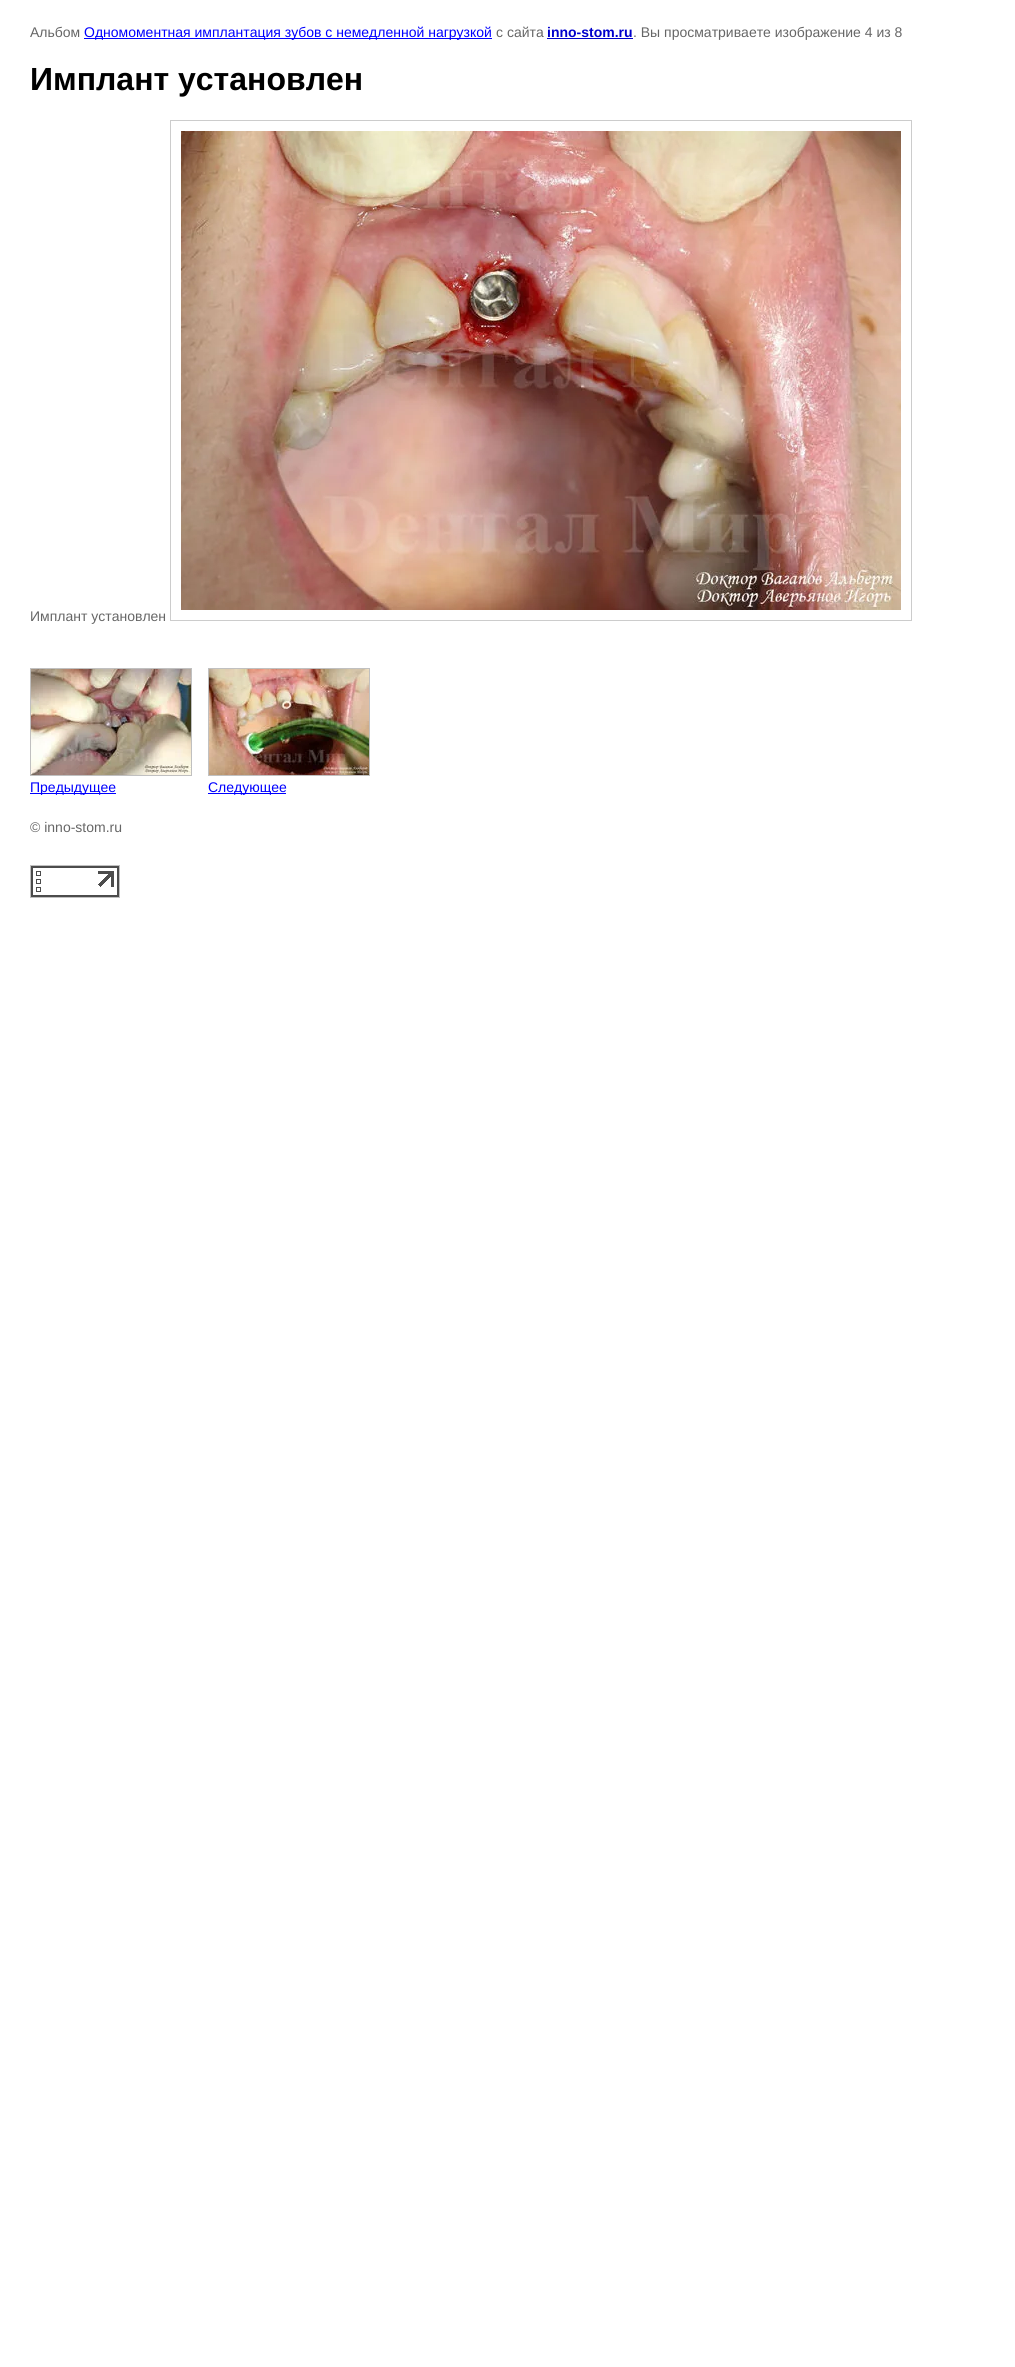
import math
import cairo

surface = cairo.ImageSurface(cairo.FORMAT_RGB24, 1015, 2367)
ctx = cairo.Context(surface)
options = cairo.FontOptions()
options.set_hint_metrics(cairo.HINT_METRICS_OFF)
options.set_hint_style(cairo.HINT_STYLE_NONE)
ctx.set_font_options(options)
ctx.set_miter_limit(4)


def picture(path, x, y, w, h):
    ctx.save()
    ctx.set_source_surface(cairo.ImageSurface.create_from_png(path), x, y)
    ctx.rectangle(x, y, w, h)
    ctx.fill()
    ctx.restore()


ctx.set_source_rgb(1, 1, 1)
ctx.paint()
ctx.select_font_face("Liberation Sans")
ctx.set_font_size(14)
ctx.set_source_rgb(0.4, 0.4, 0.4)
ctx.move_to(30, 37)
ctx.show_text("Альбом")
ctx.set_source_rgb(0, 0, 1)
ctx.rectangle(84, 38, 408, 1)
ctx.fill()
ctx.move_to(84, 37)
ctx.show_text("Одномоментная имплантация зубов с немедленной нагрузкой")
ctx.set_source_rgb(0.4, 0.4, 0.4)
ctx.move_to(496, 37)
ctx.show_text("с сайта")
ctx.select_font_face("Liberation Sans", cairo.FONT_SLANT_NORMAL, cairo.FONT_WEIGHT_BOLD)
ctx.set_source_rgb(0, 0, 0.8)
ctx.move_to(547, 37)
ctx.show_text("inno-stom.ru")
ctx.rectangle(547, 38, 86, 1)
ctx.fill()
ctx.select_font_face("Liberation Sans")
ctx.set_source_rgb(0.4, 0.4, 0.4)
ctx.move_to(633, 37)
ctx.show_text(". Вы просматриваете изображение 4 из 8")
ctx.select_font_face("Liberation Sans", cairo.FONT_SLANT_NORMAL, cairo.FONT_WEIGHT_BOLD)
ctx.set_font_size(32)
ctx.set_source_rgb(0, 0, 0)
ctx.move_to(30, 90)
ctx.show_text("Имплант установлен")
ctx.select_font_face("Liberation Sans")
ctx.set_font_size(14)
ctx.set_source_rgb(0.4, 0.4, 0.4)
ctx.move_to(30, 621)
ctx.show_text("Имплант установлен")
ctx.rectangle(170.5, 120.5, 741, 500)
ctx.set_source_rgb(0.8, 0.8, 0.8)
ctx.set_line_width(1)
ctx.stroke()
picture("img1.png", 181, 131, 720, 479)
ctx.rectangle(30.5, 668.5, 161, 107)
ctx.set_source_rgb(0.753, 0.753, 0.753)
ctx.stroke()
picture("img2.png", 31, 669, 160, 106)
ctx.set_source_rgb(0, 0, 1)
ctx.rectangle(30, 793, 86, 1)
ctx.fill()
ctx.move_to(30, 792)
ctx.show_text("Предыдущее")
ctx.rectangle(208.5, 668.5, 161, 107)
ctx.set_source_rgb(0.753, 0.753, 0.753)
ctx.stroke()
picture("img3.png", 209, 669, 160, 106)
ctx.set_source_rgb(0, 0, 1)
ctx.rectangle(208, 793, 78, 1)
ctx.fill()
ctx.move_to(208, 792)
ctx.show_text("Следующее")
ctx.set_source_rgb(0.4, 0.4, 0.4)
ctx.move_to(30, 832)
ctx.show_text("© inno-stom.ru")
ctx.rectangle(30.5, 865.5, 89, 32)
ctx.set_source_rgb(0.753, 0.753, 0.753)
ctx.stroke()
picture("img4.png", 31, 866, 88, 31)
surface.write_to_png("page.png")
